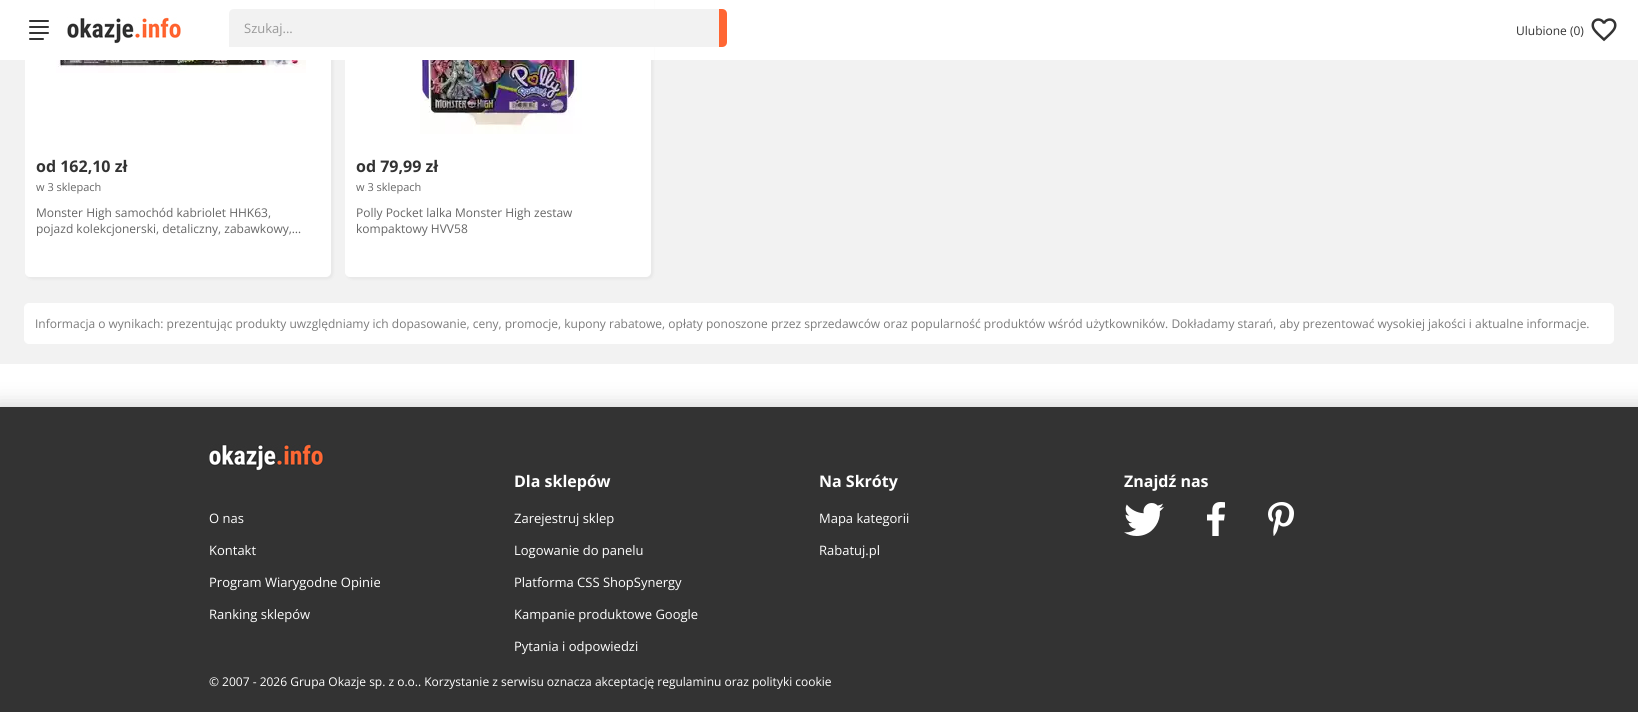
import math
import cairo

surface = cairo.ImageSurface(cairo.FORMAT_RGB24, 1638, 712)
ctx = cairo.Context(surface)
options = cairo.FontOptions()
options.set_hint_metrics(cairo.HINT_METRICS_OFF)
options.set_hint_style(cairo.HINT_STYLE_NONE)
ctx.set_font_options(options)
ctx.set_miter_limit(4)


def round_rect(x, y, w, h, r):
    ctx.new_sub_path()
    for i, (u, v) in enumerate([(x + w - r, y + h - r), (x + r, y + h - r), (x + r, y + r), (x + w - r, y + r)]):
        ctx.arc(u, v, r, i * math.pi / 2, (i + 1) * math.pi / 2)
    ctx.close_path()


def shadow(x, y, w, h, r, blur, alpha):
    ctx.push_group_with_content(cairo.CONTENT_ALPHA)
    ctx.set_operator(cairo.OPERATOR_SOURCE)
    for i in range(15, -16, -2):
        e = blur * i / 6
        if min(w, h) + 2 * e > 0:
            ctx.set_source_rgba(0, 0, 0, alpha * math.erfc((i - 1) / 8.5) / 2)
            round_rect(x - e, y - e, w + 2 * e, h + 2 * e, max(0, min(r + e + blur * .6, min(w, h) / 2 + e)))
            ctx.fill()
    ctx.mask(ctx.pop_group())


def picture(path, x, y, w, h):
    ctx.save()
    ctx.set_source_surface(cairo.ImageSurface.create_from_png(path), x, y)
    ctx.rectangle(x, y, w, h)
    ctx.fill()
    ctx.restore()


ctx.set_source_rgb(1, 1, 1)
ctx.paint()
ctx.set_source_rgb(0.949, 0.949, 0.949)
ctx.rectangle(0, 60, 1638, 304)
ctx.fill()
ctx.set_source_rgb(0, 0, 0)
shadow(27, -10, 306, 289, 5, 1.5, 0.05)
shadow(347, -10, 306, 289, 5, 1.5, 0.05)
ctx.set_source_rgb(1, 1, 1)
round_rect(345.5, -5.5, 305, 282, 4.5)
ctx.fill_preserve()
ctx.set_line_width(1)
ctx.stroke()
ctx.rectangle(331, 0, 323, 60)
ctx.fill()
round_rect(25.5, -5.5, 305, 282, 4.5)
ctx.fill_preserve()
ctx.stroke()
ctx.set_source_rgb(0.2, 0.2, 0.2)
round_rect(29, 20, 20, 2, 1)
ctx.fill()
round_rect(29, 26, 20, 2, 1)
ctx.fill()
round_rect(29, 32, 20, 2, 1)
ctx.fill()
round_rect(29, 38, 15, 2, 1)
ctx.fill()
picture("img1.png", 67, 17, 114, 27)
ctx.set_source_rgb(1, 0.4, 0.2)
ctx.new_path()
ctx.move_to(689, 9)
ctx.line_to(722, 9)
ctx.curve_to(725, 9, 727, 11, 727, 14)
ctx.line_to(727, 42)
ctx.curve_to(727, 45, 725, 47, 722, 47)
ctx.line_to(689, 47)
ctx.close_path()
ctx.fill()
ctx.set_source_rgb(0.949, 0.949, 0.949)
ctx.new_path()
ctx.move_to(234, 9)
ctx.line_to(719, 9)
ctx.line_to(719, 47)
ctx.line_to(229, 47)
ctx.line_to(229, 14)
ctx.curve_to(229, 11, 231, 9, 234, 9)
ctx.close_path()
ctx.fill()
ctx.select_font_face("Open Sans")
ctx.set_font_size(13)
ctx.set_source_rgb(0.6, 0.6, 0.6)
ctx.move_to(244, 33)
ctx.show_text("Szukaj...")
ctx.set_font_size(12)
ctx.set_source_rgb(0.2, 0.2, 0.2)
ctx.move_to(1516, 35)
ctx.show_text("Ulubione (0)")
picture("img2.png", 1591, 18, 26, 24)
picture("img3.png", 56, 60, 250, 13)
ctx.select_font_face("Open Sans", cairo.FONT_SLANT_NORMAL, cairo.FONT_WEIGHT_BOLD)
ctx.set_font_size(16)
ctx.move_to(36, 172)
ctx.show_text("od 162,10 zł")
ctx.select_font_face("Open Sans")
ctx.set_font_size(11)
ctx.set_source_rgb(0.4, 0.4, 0.4)
ctx.move_to(36, 191)
ctx.show_text("w 3 sklepach")
ctx.set_font_size(12)
ctx.move_to(36, 217)
ctx.show_text("Monster High samochód kabriolet HHK63,")
ctx.move_to(36, 233)
ctx.show_text("pojazd kolekcjonerski, detaliczny, zabawkowy,…")
picture("img4.png", 420, 60, 162, 74)
ctx.select_font_face("Open Sans", cairo.FONT_SLANT_NORMAL, cairo.FONT_WEIGHT_BOLD)
ctx.set_font_size(16)
ctx.set_source_rgb(0.2, 0.2, 0.2)
ctx.move_to(356, 172)
ctx.show_text("od 79,99 zł")
ctx.select_font_face("Open Sans")
ctx.set_font_size(11)
ctx.set_source_rgb(0.4, 0.4, 0.4)
ctx.move_to(356, 191)
ctx.show_text("w 3 sklepach")
ctx.set_font_size(12)
ctx.move_to(356, 217)
ctx.show_text("Polly Pocket lalka Monster High zestaw")
ctx.move_to(356, 233)
ctx.show_text("kompaktowy HVV58")
ctx.set_source_rgb(1, 1, 1)
round_rect(24.5, 303.5, 1589, 40, 4.5)
ctx.fill_preserve()
ctx.stroke()
ctx.set_source_rgb(0.482, 0.482, 0.482)
ctx.move_to(35, 328)
ctx.show_text("Informacja o wynikach: prezentując produkty uwzględniamy ich dopasowanie, ceny, promocje, kupony rabatowe, opłaty ponoszone przez sprzedawców oraz popularność produktów wśród użytkowników. Dokładamy starań, aby prezentować wysokiej jakości i aktualne informacje.")
ctx.set_source_rgb(0.843, 0.843, 0.843)
shadow(-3, 404, 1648, 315, 0, 10, 1)
ctx.set_source_rgb(0.2, 0.2, 0.2)
ctx.rectangle(0, 407, 1638, 305)
ctx.fill()
ctx.select_font_face("Open Sans", cairo.FONT_SLANT_NORMAL, cairo.FONT_WEIGHT_BOLD)
ctx.set_font_size(16)
ctx.set_source_rgb(1, 1, 1)
ctx.move_to(514, 487)
ctx.show_text("Dla sklepów")
ctx.select_font_face("Open Sans")
ctx.set_font_size(13)
ctx.move_to(514, 523)
ctx.show_text("Zarejestruj sklep")
ctx.move_to(514, 555)
ctx.show_text("Logowanie do panelu")
ctx.move_to(514, 587)
ctx.show_text("Platforma CSS ShopSynergy")
ctx.move_to(514, 619)
ctx.show_text("Kampanie produktowe Google")
ctx.move_to(514, 651)
ctx.show_text("Pytania i odpowiedzi")
ctx.select_font_face("Open Sans", cairo.FONT_SLANT_NORMAL, cairo.FONT_WEIGHT_BOLD)
ctx.set_font_size(16)
ctx.move_to(819, 487)
ctx.show_text("Na Skróty")
ctx.select_font_face("Open Sans")
ctx.set_font_size(13)
ctx.move_to(819, 523)
ctx.show_text("Mapa kategorii")
ctx.move_to(819, 555)
ctx.show_text("Rabatuj.pl")
ctx.select_font_face("Open Sans", cairo.FONT_SLANT_NORMAL, cairo.FONT_WEIGHT_BOLD)
ctx.set_font_size(16)
ctx.move_to(1124, 487)
ctx.show_text("Znajdź nas")
picture("img5.png", 1124, 503, 40, 33)
picture("img6.png", 1207, 502, 18, 34)
picture("img7.png", 1268, 502, 26, 34)
picture("img8.png", 209, 444, 116, 27)
ctx.select_font_face("Open Sans")
ctx.set_font_size(13)
ctx.move_to(209, 523)
ctx.show_text("O nas")
ctx.move_to(209, 555)
ctx.show_text("Kontakt")
ctx.move_to(209, 587)
ctx.show_text("Program Wiarygodne Opinie")
ctx.move_to(209, 619)
ctx.show_text("Ranking sklepów")
ctx.set_font_size(12)
ctx.move_to(209, 686)
ctx.show_text("© 2007 - 2026 Grupa Okazje sp. z o.o.. Korzystanie z serwisu oznacza akceptację regulaminu oraz polityki cookie")
surface.write_to_png("page.png")
